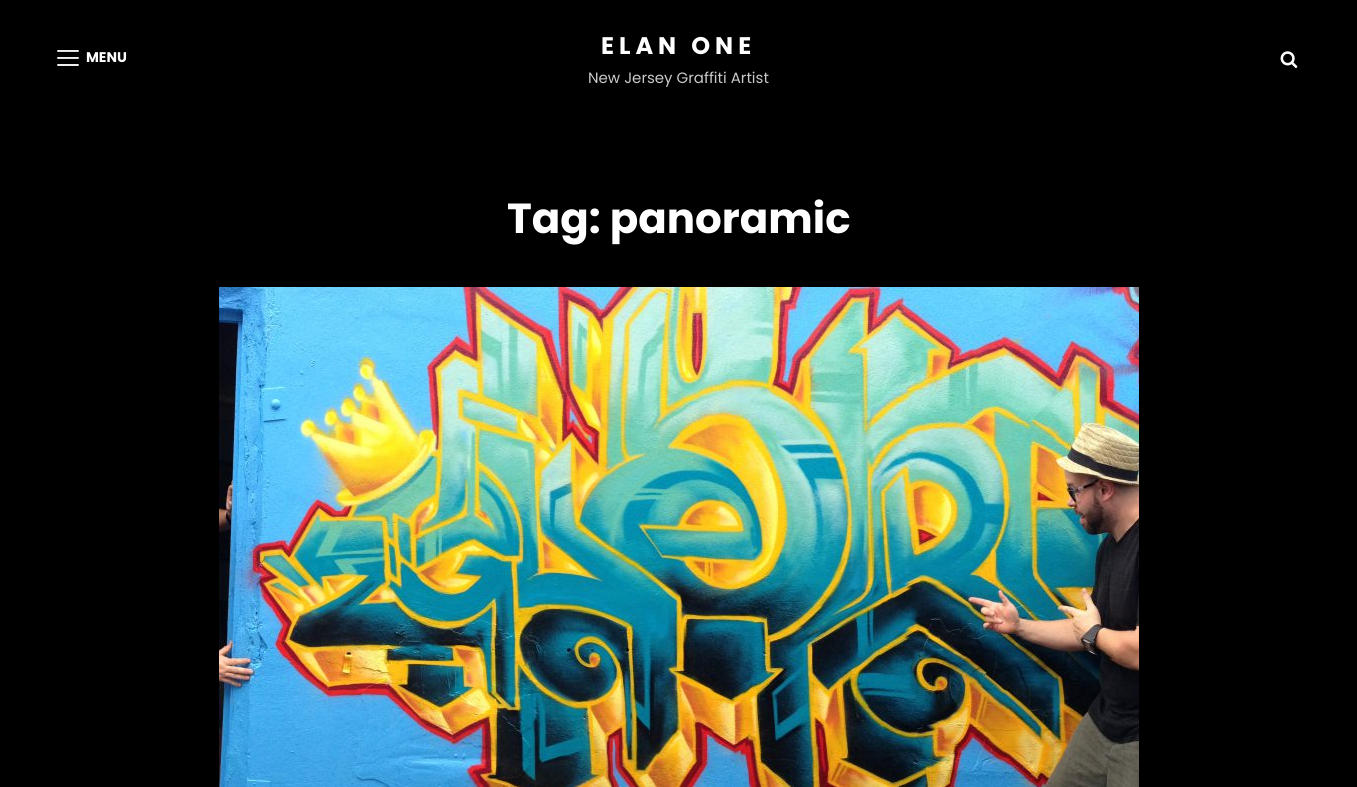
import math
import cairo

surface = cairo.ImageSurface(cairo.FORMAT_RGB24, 1357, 787)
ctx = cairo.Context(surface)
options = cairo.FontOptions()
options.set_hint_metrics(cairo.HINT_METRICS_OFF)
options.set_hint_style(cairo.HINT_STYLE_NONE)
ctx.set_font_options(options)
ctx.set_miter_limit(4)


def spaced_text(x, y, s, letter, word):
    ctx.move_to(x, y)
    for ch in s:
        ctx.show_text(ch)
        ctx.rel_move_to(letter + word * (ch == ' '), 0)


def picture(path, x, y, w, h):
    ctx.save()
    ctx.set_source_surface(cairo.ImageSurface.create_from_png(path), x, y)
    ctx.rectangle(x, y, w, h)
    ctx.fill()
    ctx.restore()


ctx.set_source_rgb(0, 0, 0)
ctx.paint()
picture("img1.png", 57, 50, 22, 16)
ctx.select_font_face("Poppins", cairo.FONT_SLANT_NORMAL, cairo.FONT_WEIGHT_BOLD)
ctx.set_font_size(14)
ctx.set_source_rgb(1, 1, 1)
ctx.move_to(86, 62)
ctx.show_text("MENU")
ctx.set_font_size(24)
spaced_text(601, 54, "ELAN ONE", 5, 0)
ctx.select_font_face("Poppins")
ctx.set_font_size(15)
ctx.set_source_rgb(0.788, 0.788, 0.788)
ctx.move_to(588, 83)
ctx.show_text("New Jersey Graffiti Artist")
picture("img2.png", 1280, 51, 18, 17)
ctx.select_font_face("Poppins", cairo.FONT_SLANT_NORMAL, cairo.FONT_WEIGHT_BOLD)
ctx.set_font_size(42)
ctx.set_source_rgb(1, 1, 1)
ctx.move_to(507, 233)
ctx.show_text("Tag: panoramic")
picture("img3.png", 219, 287, 920, 500)
surface.write_to_png("page.png")
